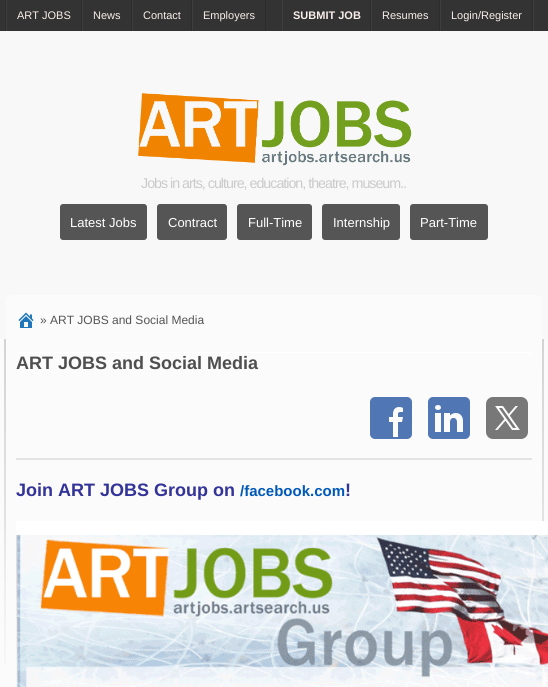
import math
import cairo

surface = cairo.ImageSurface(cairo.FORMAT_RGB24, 548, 687)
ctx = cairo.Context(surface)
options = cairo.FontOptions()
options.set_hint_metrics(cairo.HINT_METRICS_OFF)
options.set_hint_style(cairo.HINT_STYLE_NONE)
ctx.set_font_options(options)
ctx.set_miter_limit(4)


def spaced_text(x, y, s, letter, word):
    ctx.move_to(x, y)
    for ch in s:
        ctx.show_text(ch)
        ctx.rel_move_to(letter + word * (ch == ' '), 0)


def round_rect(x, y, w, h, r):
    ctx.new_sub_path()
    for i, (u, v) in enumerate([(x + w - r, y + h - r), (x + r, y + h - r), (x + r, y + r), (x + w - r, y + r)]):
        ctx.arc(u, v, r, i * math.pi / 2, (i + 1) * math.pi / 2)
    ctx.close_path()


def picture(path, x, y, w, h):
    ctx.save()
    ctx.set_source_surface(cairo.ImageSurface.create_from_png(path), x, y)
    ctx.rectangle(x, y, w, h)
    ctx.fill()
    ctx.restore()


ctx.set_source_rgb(0.984, 0.984, 0.984)
ctx.paint()
ctx.set_source_rgb(0.2, 0.2, 0.2)
ctx.rectangle(0, 0, 548, 31)
ctx.fill()
ctx.set_source_rgb(0.243, 0.243, 0.243)
ctx.rectangle(533, 0, 1, 31)
ctx.fill()
ctx.set_source_rgb(0.173, 0.173, 0.173)
ctx.rectangle(5, 0, 1, 31)
ctx.fill()
ctx.rectangle(81, 0, 1, 31)
ctx.fill()
ctx.set_source_rgb(0.243, 0.243, 0.243)
ctx.rectangle(6, 0, 1, 31)
ctx.fill()
ctx.select_font_face("Liberation Sans")
ctx.set_font_size(11)
ctx.set_source_rgb(0.973, 0.937, 0.922)
ctx.move_to(17, 19)
ctx.show_text("ART JOBS")
ctx.set_source_rgb(0.173, 0.173, 0.173)
ctx.rectangle(131, 0, 1, 31)
ctx.fill()
ctx.set_source_rgb(0.243, 0.243, 0.243)
ctx.rectangle(82, 0, 1, 31)
ctx.fill()
ctx.set_source_rgb(0.973, 0.937, 0.922)
ctx.move_to(93, 19)
ctx.show_text("News")
ctx.set_source_rgb(0.173, 0.173, 0.173)
ctx.rectangle(191, 0, 1, 31)
ctx.fill()
ctx.set_source_rgb(0.243, 0.243, 0.243)
ctx.rectangle(132, 0, 1, 31)
ctx.fill()
ctx.set_source_rgb(0.973, 0.937, 0.922)
ctx.move_to(143, 19)
ctx.show_text("Contact")
ctx.set_source_rgb(0.173, 0.173, 0.173)
ctx.rectangle(265, 0, 1, 31)
ctx.fill()
ctx.set_source_rgb(0.243, 0.243, 0.243)
ctx.rectangle(192, 0, 1, 31)
ctx.fill()
ctx.set_source_rgb(0.973, 0.937, 0.922)
ctx.move_to(203, 19)
ctx.show_text("Employers")
ctx.set_source_rgb(0.173, 0.173, 0.173)
ctx.rectangle(370, 0, 1, 31)
ctx.fill()
ctx.set_source_rgb(0.243, 0.243, 0.243)
ctx.rectangle(282, 0, 1, 31)
ctx.fill()
ctx.select_font_face("Liberation Sans", cairo.FONT_SLANT_NORMAL, cairo.FONT_WEIGHT_BOLD)
ctx.set_source_rgb(0.973, 0.937, 0.922)
ctx.move_to(293, 19)
ctx.show_text("SUBMIT JOB")
ctx.set_source_rgb(0.173, 0.173, 0.173)
ctx.rectangle(439, 0, 1, 31)
ctx.fill()
ctx.set_source_rgb(0.243, 0.243, 0.243)
ctx.rectangle(371, 0, 1, 31)
ctx.fill()
ctx.select_font_face("Liberation Sans")
ctx.set_source_rgb(0.973, 0.937, 0.922)
ctx.move_to(382, 19)
ctx.show_text("Resumes")
ctx.set_source_rgb(0.173, 0.173, 0.173)
ctx.rectangle(532, 0, 1, 31)
ctx.fill()
ctx.set_source_rgb(0.243, 0.243, 0.243)
ctx.rectangle(440, 0, 1, 31)
ctx.fill()
ctx.set_source_rgb(0.973, 0.937, 0.922)
ctx.move_to(451, 19)
ctx.show_text("Login/Register")
ctx.set_source_rgb(0.969, 0.969, 0.969)
ctx.rectangle(0, 31, 548, 308)
ctx.fill()
picture("img1.png", 138, 93, 274, 73)
ctx.set_font_size(14.25)
ctx.set_source_rgb(0.792, 0.792, 0.792)
spaced_text(141, 188, "Jobs in arts, culture, education, theatre, museum..", -1, 0)
ctx.set_source_rgb(0.333, 0.333, 0.333)
round_rect(60, 204, 87, 36, 3)
ctx.fill()
ctx.set_font_size(13)
ctx.set_source_rgb(1, 1, 1)
ctx.move_to(70, 227)
ctx.show_text("Latest Jobs")
ctx.set_source_rgb(0.333, 0.333, 0.333)
round_rect(157, 204, 70, 36, 3)
ctx.fill()
ctx.set_source_rgb(1, 1, 1)
ctx.move_to(168, 227)
ctx.show_text("Contract")
ctx.set_source_rgb(0.333, 0.333, 0.333)
round_rect(237, 204, 75, 36, 3)
ctx.fill()
ctx.set_source_rgb(1, 1, 1)
ctx.move_to(248, 227)
ctx.show_text("Full-Time")
ctx.set_source_rgb(0.333, 0.333, 0.333)
round_rect(322, 204, 78, 36, 3)
ctx.fill()
ctx.set_source_rgb(1, 1, 1)
ctx.move_to(333, 227)
ctx.show_text("Internship")
ctx.set_source_rgb(0.333, 0.333, 0.333)
round_rect(410, 204, 78, 36, 3)
ctx.fill()
ctx.set_source_rgb(1, 1, 1)
ctx.move_to(420, 227)
ctx.show_text("Part-Time")
picture("img2.png", 4, 339, 540, 325)
ctx.set_source_rgb(0.984, 0.984, 0.984)
round_rect(6, 295, 536, 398, 6)
ctx.fill()
picture("img3.png", 18, 312, 16, 16)
ctx.set_font_size(12)
ctx.set_source_rgb(0.333, 0.333, 0.333)
ctx.move_to(40, 324)
ctx.show_text("» ART JOBS and Social Media")
ctx.set_source_rgb(1, 1, 1)
ctx.rectangle(16, 352, 516, 1)
ctx.fill()
ctx.select_font_face("Liberation Sans", cairo.FONT_SLANT_NORMAL, cairo.FONT_WEIGHT_BOLD)
ctx.set_font_size(18)
ctx.set_source_rgb(0.31, 0.31, 0.31)
ctx.move_to(16, 369)
ctx.show_text("ART JOBS and Social Media")
picture("img4.png", 370, 397, 42, 42)
picture("img5.png", 428, 397, 42, 42)
picture("img6.png", 486, 397, 42, 42)
ctx.set_source_rgb(0.89, 0.89, 0.89)
ctx.rectangle(16, 458, 516, 2)
ctx.fill()
ctx.set_source_rgb(0.2, 0.2, 0.6)
ctx.move_to(16, 496)
ctx.show_text("Join ART JOBS Group on")
ctx.set_font_size(15)
ctx.set_source_rgb(0, 0.349, 0.722)
ctx.move_to(240, 496)
ctx.show_text("/facebook.com")
ctx.set_font_size(18)
ctx.set_source_rgb(0.2, 0.2, 0.6)
ctx.move_to(345, 496)
ctx.show_text("!")
picture("img7.png", 16, 521, 532, 166)
surface.write_to_png("page.png")
